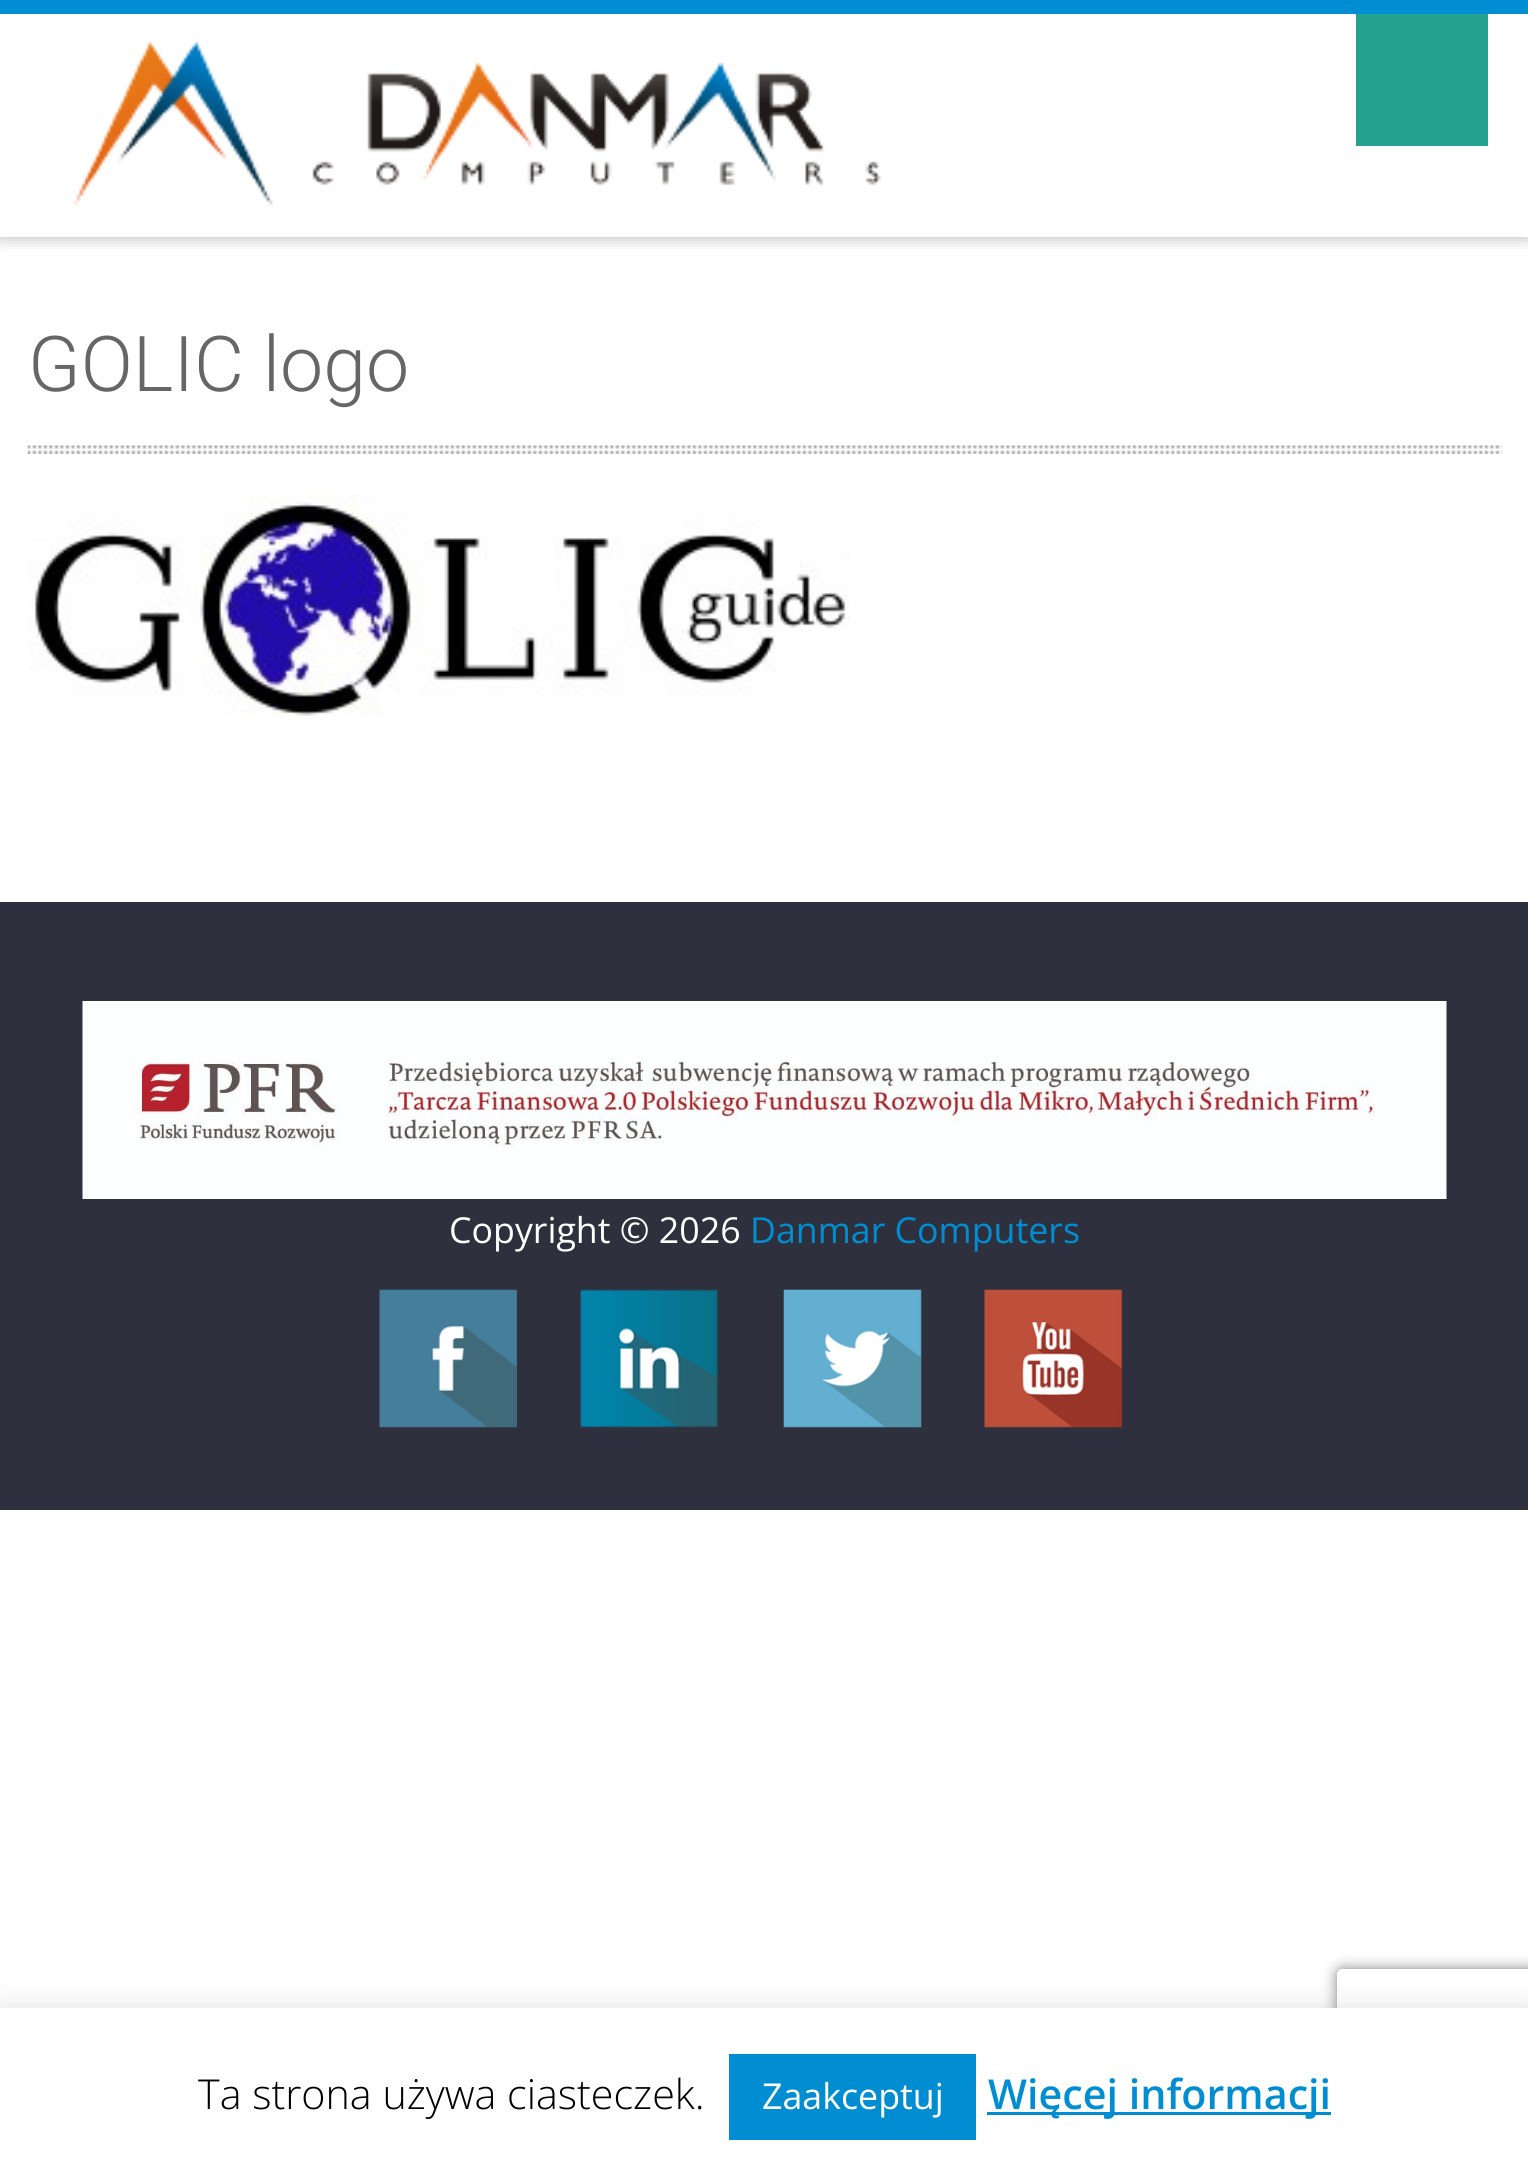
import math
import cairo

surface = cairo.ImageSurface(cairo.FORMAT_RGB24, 1528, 2171)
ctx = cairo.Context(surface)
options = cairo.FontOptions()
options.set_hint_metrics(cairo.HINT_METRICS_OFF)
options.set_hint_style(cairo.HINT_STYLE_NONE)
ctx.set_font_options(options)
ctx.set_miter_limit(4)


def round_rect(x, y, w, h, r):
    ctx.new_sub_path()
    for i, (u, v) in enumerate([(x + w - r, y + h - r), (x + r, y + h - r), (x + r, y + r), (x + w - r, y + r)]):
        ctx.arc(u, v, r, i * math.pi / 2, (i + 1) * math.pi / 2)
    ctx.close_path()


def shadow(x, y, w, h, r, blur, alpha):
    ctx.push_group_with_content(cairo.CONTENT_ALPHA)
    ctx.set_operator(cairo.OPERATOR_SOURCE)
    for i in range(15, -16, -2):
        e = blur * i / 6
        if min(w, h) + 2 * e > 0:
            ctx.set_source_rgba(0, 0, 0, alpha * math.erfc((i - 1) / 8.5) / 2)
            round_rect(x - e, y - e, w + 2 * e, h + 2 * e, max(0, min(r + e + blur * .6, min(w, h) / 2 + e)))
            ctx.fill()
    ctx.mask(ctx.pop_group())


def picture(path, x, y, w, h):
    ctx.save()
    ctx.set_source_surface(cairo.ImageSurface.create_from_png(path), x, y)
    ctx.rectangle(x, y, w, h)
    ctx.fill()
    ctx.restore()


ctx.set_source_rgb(1, 1, 1)
ctx.paint()
ctx.set_source_rgb(0, 0, 0)
shadow(0, 0, 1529, 237, 0, 8, 0.3)
ctx.set_source_rgb(1, 1, 1)
ctx.rectangle(0, 14, 1528, 223)
ctx.fill()
ctx.set_source_rgb(0, 0.553, 0.824)
ctx.rectangle(0, 0, 1528, 14)
ctx.fill()
picture("img1.png", 72, 41, 809, 168)
ctx.set_source_rgb(0.137, 0.639, 0.561)
ctx.rectangle(1356, 14, 132, 132)
ctx.fill()
picture("img2.png", 27, 445, 1475, 9)
ctx.select_font_face("Roboto Light")
ctx.set_font_size(77)
ctx.set_source_rgb(0.4, 0.4, 0.4)
ctx.move_to(28, 391)
ctx.show_text("GOLIC logo")
picture("img3.png", 27, 495, 823, 221)
ctx.set_source_rgb(0.18, 0.192, 0.239)
ctx.rectangle(0, 902, 1528, 608)
ctx.fill()
picture("img4.png", 82, 1001, 1365, 198)
ctx.select_font_face("Open Sans")
ctx.set_font_size(35.75)
ctx.set_source_rgb(1, 1, 1)
ctx.move_to(449, 1243)
ctx.show_text("Copyright © 2026")
ctx.set_source_rgb(0, 0.553, 0.824)
ctx.move_to(750, 1243)
ctx.show_text("Danmar Computers")
picture("img5.png", 379, 1289, 138, 139)
picture("img6.png", 580, 1289, 138, 139)
picture("img7.png", 783, 1289, 139, 139)
picture("img8.png", 984, 1289, 138, 139)
ctx.set_source_rgb(0.675, 0.671, 0.671)
shadow(0, 2005, 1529, 165, 0, 14, 0.3)
ctx.save()
ctx.set_fill_rule(cairo.FILL_RULE_EVEN_ODD)
ctx.new_path()
ctx.move_to(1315, 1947)
ctx.line_to(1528, 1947)
ctx.line_to(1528, 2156)
ctx.line_to(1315, 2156)
ctx.close_path()
ctx.move_to(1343, 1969)
ctx.line_to(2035, 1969)
ctx.curve_to(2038.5, 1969, 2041, 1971.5, 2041, 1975)
ctx.line_to(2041, 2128)
ctx.curve_to(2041, 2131.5, 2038.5, 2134, 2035, 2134)
ctx.line_to(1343, 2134)
ctx.curve_to(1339.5, 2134, 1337, 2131.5, 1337, 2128)
ctx.line_to(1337, 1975)
ctx.curve_to(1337, 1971.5, 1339.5, 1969, 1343, 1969)
ctx.close_path()
ctx.clip()
ctx.set_source_rgb(0.502, 0.502, 0.502)
shadow(1337, 1969, 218, 165, 6, 7, 1)
ctx.restore()
ctx.set_source_rgb(1, 1, 1)
ctx.rectangle(0, 2008, 1528, 163)
ctx.fill()
ctx.select_font_face("Open Sans Light")
ctx.set_font_size(41.25)
ctx.set_source_rgb(0, 0, 0)
ctx.move_to(198, 2109)
ctx.show_text("Ta strona używa ciasteczek.")
ctx.set_source_rgb(0, 0.553, 0.824)
ctx.rectangle(729, 2054, 247, 86)
ctx.fill()
ctx.select_font_face("Open Sans")
ctx.set_font_size(35.75)
ctx.set_source_rgb(1, 1, 1)
ctx.move_to(762, 2109)
ctx.show_text("Zaakceptuj")
ctx.set_source_rgb(0, 0.553, 0.824)
ctx.rectangle(987, 2112, 344, 3)
ctx.fill()
ctx.select_font_face("Open Sans SemiBold")
ctx.set_font_size(41.25)
ctx.move_to(988, 2109)
ctx.show_text("Więcej informacji")
surface.write_to_png("page.png")
